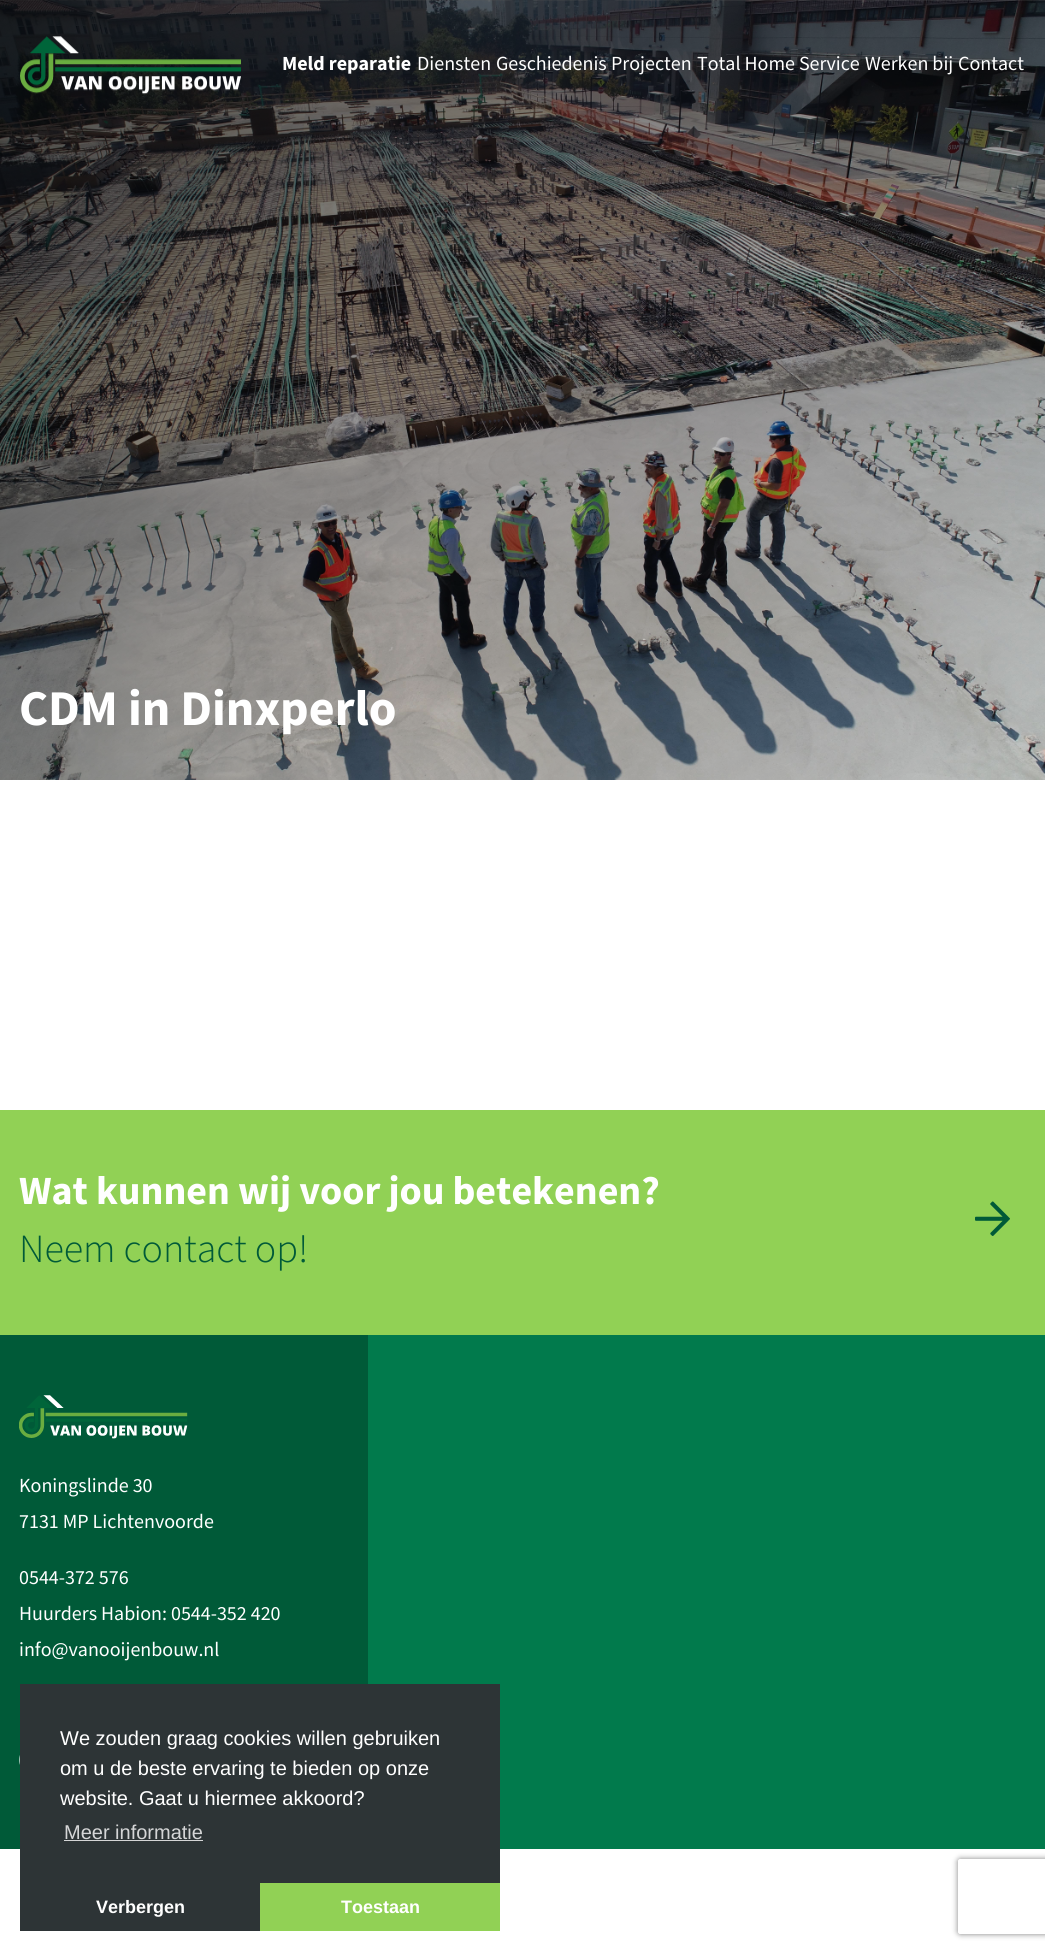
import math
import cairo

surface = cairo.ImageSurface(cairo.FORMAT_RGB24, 1045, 1951)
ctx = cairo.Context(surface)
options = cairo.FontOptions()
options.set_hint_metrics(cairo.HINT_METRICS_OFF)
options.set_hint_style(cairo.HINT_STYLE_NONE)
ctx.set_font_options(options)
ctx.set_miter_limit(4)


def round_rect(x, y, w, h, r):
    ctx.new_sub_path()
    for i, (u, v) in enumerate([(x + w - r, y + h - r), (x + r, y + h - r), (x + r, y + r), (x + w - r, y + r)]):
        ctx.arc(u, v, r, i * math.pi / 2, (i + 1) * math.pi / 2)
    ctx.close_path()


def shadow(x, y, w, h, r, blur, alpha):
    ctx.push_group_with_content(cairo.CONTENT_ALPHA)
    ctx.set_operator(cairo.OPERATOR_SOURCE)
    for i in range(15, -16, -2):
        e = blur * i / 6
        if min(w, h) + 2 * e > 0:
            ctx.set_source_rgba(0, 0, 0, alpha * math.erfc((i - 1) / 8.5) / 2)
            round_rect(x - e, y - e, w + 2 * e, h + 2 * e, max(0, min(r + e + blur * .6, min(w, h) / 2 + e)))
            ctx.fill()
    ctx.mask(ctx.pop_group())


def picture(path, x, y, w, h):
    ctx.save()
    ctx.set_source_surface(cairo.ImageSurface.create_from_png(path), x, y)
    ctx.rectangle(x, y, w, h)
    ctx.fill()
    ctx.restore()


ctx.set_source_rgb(1, 1, 1)
ctx.paint()
picture("img2.png", 0, 0, 1045, 780)
picture("img1.png", 20, 36, 221, 59)
ctx.select_font_face("Mada", cairo.FONT_SLANT_NORMAL, cairo.FONT_WEIGHT_BOLD)
ctx.set_font_size(20)
ctx.set_source_rgb(1, 1, 1)
ctx.move_to(282, 70)
ctx.show_text("Meld reparatie")
ctx.select_font_face("Mada")
ctx.move_to(417, 70)
ctx.show_text("Diensten")
ctx.move_to(496, 70)
ctx.show_text("Geschiedenis")
ctx.move_to(611, 70)
ctx.show_text("Projecten")
ctx.move_to(697, 70)
ctx.show_text("Total Home Service")
ctx.move_to(865, 70)
ctx.show_text("Werken bij")
ctx.move_to(958, 70)
ctx.show_text("Contact")
ctx.select_font_face("Mada", cairo.FONT_SLANT_NORMAL, cairo.FONT_WEIGHT_BOLD)
ctx.set_font_size(50)
ctx.move_to(19, 725)
ctx.show_text("CDM in Dinxperlo")
ctx.set_source_rgb(0.569, 0.82, 0.333)
ctx.rectangle(0, 1110, 1045, 225)
ctx.fill()
ctx.set_font_size(40)
ctx.set_source_rgb(1, 1, 1)
ctx.move_to(19, 1204)
ctx.show_text("Wat kunnen wij voor jou betekenen?")
ctx.select_font_face("Mada Light")
ctx.set_source_rgb(0, 0.353, 0.22)
ctx.move_to(19, 1262)
ctx.show_text("Neem contact op!")
picture("img3.png", 975, 1201, 35, 35)
ctx.rectangle(0, 1335, 368, 514)
ctx.fill()
picture("img4.png", 19, 1395, 169, 44)
ctx.select_font_face("Mada")
ctx.set_font_size(20)
ctx.set_source_rgb(1, 1, 1)
ctx.move_to(19, 1492)
ctx.show_text("Koningslinde 30")
ctx.move_to(19, 1528)
ctx.show_text("7131 MP Lichtenvoorde")
ctx.move_to(19, 1584)
ctx.show_text("0544-372 576")
ctx.move_to(19, 1620)
ctx.show_text("Huurders Habion: 0544-352 420")
ctx.move_to(19, 1656)
ctx.show_text("info@vanooijenbouw.nl")
picture("img5.png", 19, 1755, 1, 10)
ctx.set_source_rgb(0.004, 0.478, 0.298)
ctx.rectangle(368, 1335, 677, 514)
ctx.fill()
ctx.set_source_rgb(0.176, 0.204, 0.212)
ctx.rectangle(20, 1684, 480, 247)
ctx.fill()
ctx.select_font_face("Liberation Sans")
ctx.set_source_rgb(1, 1, 1)
ctx.move_to(60, 1745)
ctx.show_text("We zouden graag cookies willen gebruiken")
ctx.move_to(60, 1775)
ctx.show_text("om u de beste ervaring te bieden op onze")
ctx.move_to(60, 1805)
ctx.show_text("website. Gaat u hiermee akkoord?")
ctx.set_source_rgb(0.835, 0.839, 0.843)
ctx.move_to(64, 1839)
ctx.show_text("Meer informatie")
ctx.rectangle(64, 1840, 139, 1)
ctx.fill()
ctx.select_font_face("Liberation Sans", cairo.FONT_SLANT_NORMAL, cairo.FONT_WEIGHT_BOLD)
ctx.set_font_size(18)
ctx.set_source_rgb(1, 1, 1)
ctx.move_to(96, 1913)
ctx.show_text("Verbergen")
ctx.set_source_rgb(0.569, 0.82, 0.333)
ctx.rectangle(260, 1883, 240, 48)
ctx.fill()
ctx.set_source_rgb(1, 1, 1)
ctx.move_to(341, 1913)
ctx.show_text("Toestaan")
ctx.save()
ctx.set_fill_rule(cairo.FILL_RULE_EVEN_ODD)
ctx.new_path()
ctx.move_to(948, 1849)
ctx.line_to(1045, 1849)
ctx.line_to(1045, 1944)
ctx.line_to(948, 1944)
ctx.close_path()
ctx.move_to(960.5, 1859)
ctx.line_to(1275.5, 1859)
ctx.curve_to(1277, 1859, 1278, 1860, 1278, 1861.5)
ctx.line_to(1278, 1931.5)
ctx.curve_to(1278, 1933, 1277, 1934, 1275.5, 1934)
ctx.line_to(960.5, 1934)
ctx.curve_to(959, 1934, 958, 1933, 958, 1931.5)
ctx.line_to(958, 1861.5)
ctx.curve_to(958, 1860, 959, 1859, 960.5, 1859)
ctx.close_path()
ctx.clip()
ctx.set_source_rgb(0.502, 0.502, 0.502)
shadow(958, 1859, 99, 75, 2.5, 3, 1)
ctx.restore()
surface.write_to_png("page.png")
